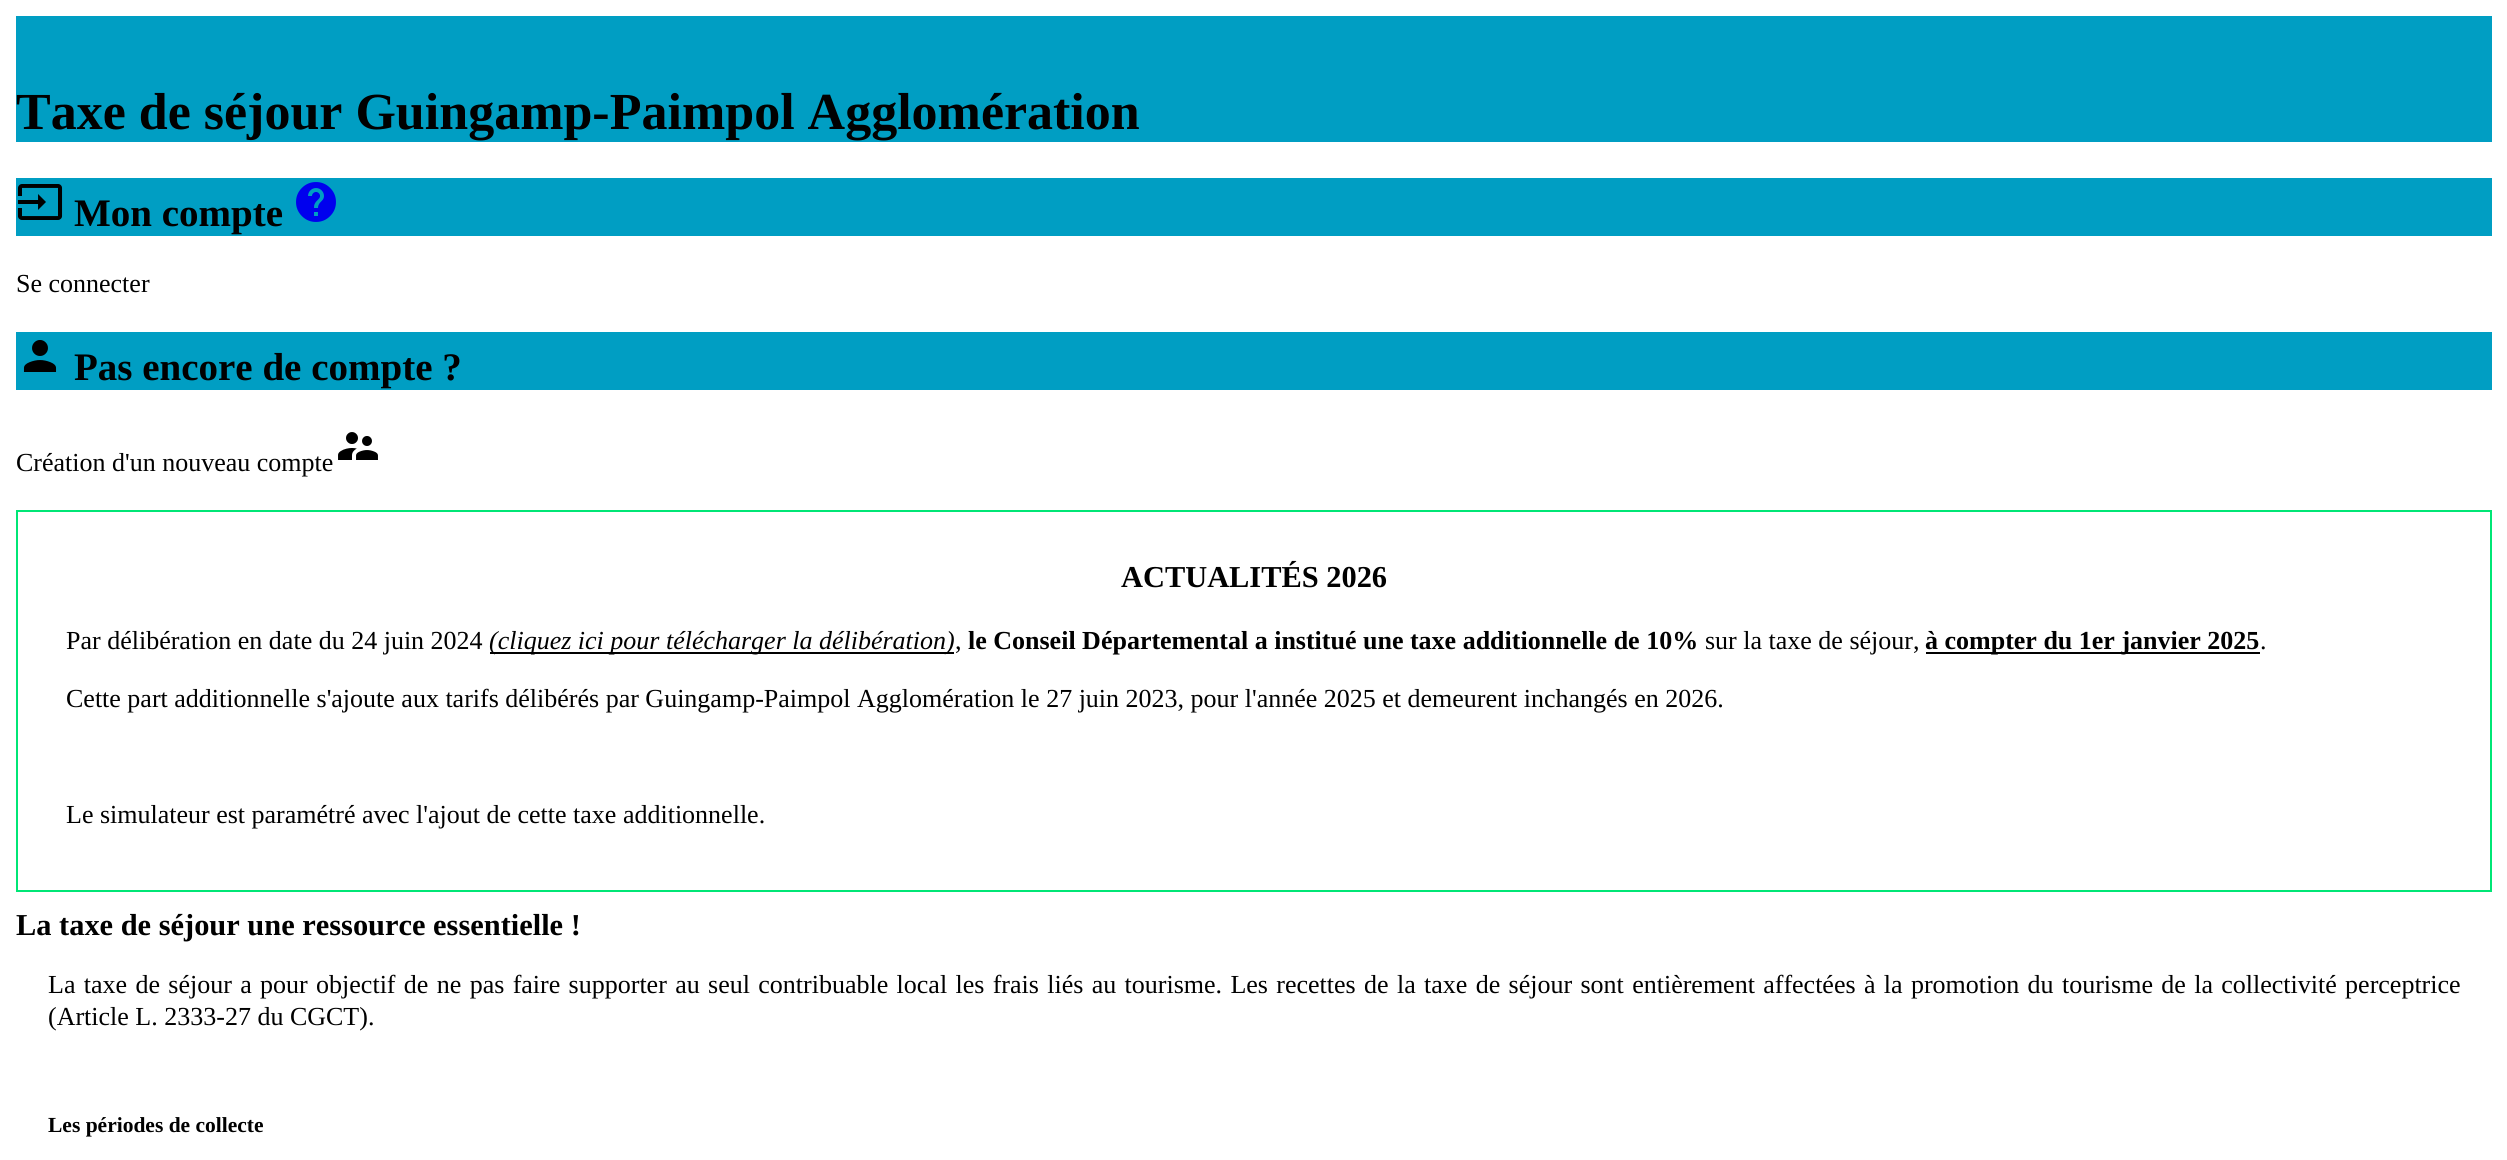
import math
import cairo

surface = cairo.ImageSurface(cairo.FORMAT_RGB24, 2507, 1160)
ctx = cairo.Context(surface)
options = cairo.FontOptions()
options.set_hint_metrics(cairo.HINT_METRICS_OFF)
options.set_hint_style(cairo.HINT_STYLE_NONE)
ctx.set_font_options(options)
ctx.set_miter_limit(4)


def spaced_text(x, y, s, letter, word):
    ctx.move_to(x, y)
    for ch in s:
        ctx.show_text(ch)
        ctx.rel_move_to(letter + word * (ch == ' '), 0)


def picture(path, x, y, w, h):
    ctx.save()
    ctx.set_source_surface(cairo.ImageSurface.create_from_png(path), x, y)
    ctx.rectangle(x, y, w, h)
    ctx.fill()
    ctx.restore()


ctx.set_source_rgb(1, 1, 1)
ctx.paint()
ctx.set_source_rgb(0, 0.62, 0.765)
ctx.rectangle(16, 16, 2476, 126)
ctx.fill()
ctx.select_font_face("Liberation Serif", cairo.FONT_SLANT_NORMAL, cairo.FONT_WEIGHT_BOLD)
ctx.set_font_size(52)
ctx.set_source_rgb(0, 0, 0)
ctx.move_to(16, 129)
ctx.show_text("Taxe de séjour Guingamp-Paimpol Agglomération")
ctx.set_source_rgb(0, 0.62, 0.765)
ctx.rectangle(16, 178, 2476, 58)
ctx.fill()
picture("img1.png", 17, 184, 46, 36)
ctx.set_font_size(39)
ctx.set_source_rgb(0, 0, 0)
ctx.move_to(74, 226)
ctx.show_text("Mon compte")
picture("img2.png", 296, 182, 40, 40)
ctx.select_font_face("Liberation Serif")
ctx.set_font_size(26)
ctx.move_to(16, 292)
ctx.show_text("Se connecter")
ctx.set_source_rgb(0, 0.62, 0.765)
ctx.rectangle(16, 332, 2476, 58)
ctx.fill()
picture("img3.png", 23, 340, 34, 32)
ctx.select_font_face("Liberation Serif", cairo.FONT_SLANT_NORMAL, cairo.FONT_WEIGHT_BOLD)
ctx.set_font_size(39)
ctx.set_source_rgb(0, 0, 0)
ctx.move_to(74, 380)
ctx.show_text("Pas encore de compte ?")
picture("img4.png", 338, 432, 40, 28)
ctx.select_font_face("Liberation Serif")
ctx.set_font_size(26)
ctx.move_to(16, 471)
ctx.show_text("Création d'un nouveau compte")
ctx.rectangle(17, 511, 2474, 380)
ctx.set_source_rgb(0, 0.902, 0.463)
ctx.stroke()
ctx.select_font_face("Liberation Serif", cairo.FONT_SLANT_NORMAL, cairo.FONT_WEIGHT_BOLD)
ctx.set_font_size(30.4)
ctx.set_source_rgb(0, 0, 0)
ctx.move_to(1121, 587)
ctx.show_text("ACTUALITÉS 2026")
ctx.select_font_face("Liberation Serif")
ctx.set_font_size(26)
ctx.move_to(66, 649)
ctx.show_text("Par délibération en date du 24 juin 2024")
ctx.rectangle(490, 652, 464, 2)
ctx.fill()
ctx.select_font_face("Liberation Serif", cairo.FONT_SLANT_ITALIC)
ctx.move_to(489, 649)
ctx.show_text("(cliquez ici pour télécharger la délibération)")
ctx.select_font_face("Liberation Serif")
ctx.move_to(955, 649)
ctx.show_text(",")
ctx.select_font_face("Liberation Serif", cairo.FONT_SLANT_NORMAL, cairo.FONT_WEIGHT_BOLD)
ctx.move_to(968, 649)
ctx.show_text("le Conseil Départemental a institué une taxe additionnelle de 10%")
ctx.select_font_face("Liberation Serif")
ctx.move_to(1705, 649)
ctx.show_text("sur la taxe de séjour,")
ctx.rectangle(1926, 652, 334, 2)
ctx.fill()
ctx.select_font_face("Liberation Serif", cairo.FONT_SLANT_NORMAL, cairo.FONT_WEIGHT_BOLD)
ctx.move_to(1925, 649)
ctx.show_text("à compter du 1er janvier 2025")
ctx.select_font_face("Liberation Serif")
ctx.move_to(2260, 649)
ctx.show_text(".")
ctx.move_to(66, 707)
ctx.show_text("Cette part additionnelle s'ajoute aux tarifs délibérés par Guingamp-Paimpol Agglomération le 27 juin 2023, pour l'année 2025 et demeurent inchangés en 2026.")
ctx.move_to(66, 823)
ctx.show_text("Le simulateur est paramétré avec l'ajout de cette taxe additionnelle.")
ctx.select_font_face("Liberation Serif", cairo.FONT_SLANT_NORMAL, cairo.FONT_WEIGHT_BOLD)
ctx.set_font_size(30.4)
ctx.move_to(16, 935)
ctx.show_text("La taxe de séjour une ressource essentielle !")
ctx.select_font_face("Liberation Serif")
ctx.set_font_size(26)
spaced_text(48, 993, "La taxe de séjour a pour objectif de ne pas faire supporter au seul contribuable local les frais liés au tourisme. Les recettes de la taxe de séjour sont entièrement affectées à la promotion du tourisme de la collectivité perceptrice", 0, 1.85)
ctx.move_to(48, 1025)
ctx.show_text("(Article L. 2333-27 du CGCT).")
ctx.select_font_face("Liberation Serif", cairo.FONT_SLANT_NORMAL, cairo.FONT_WEIGHT_BOLD)
ctx.set_font_size(21.5)
ctx.move_to(48, 1132)
ctx.show_text("Les périodes de collecte")
surface.write_to_png("page.png")
